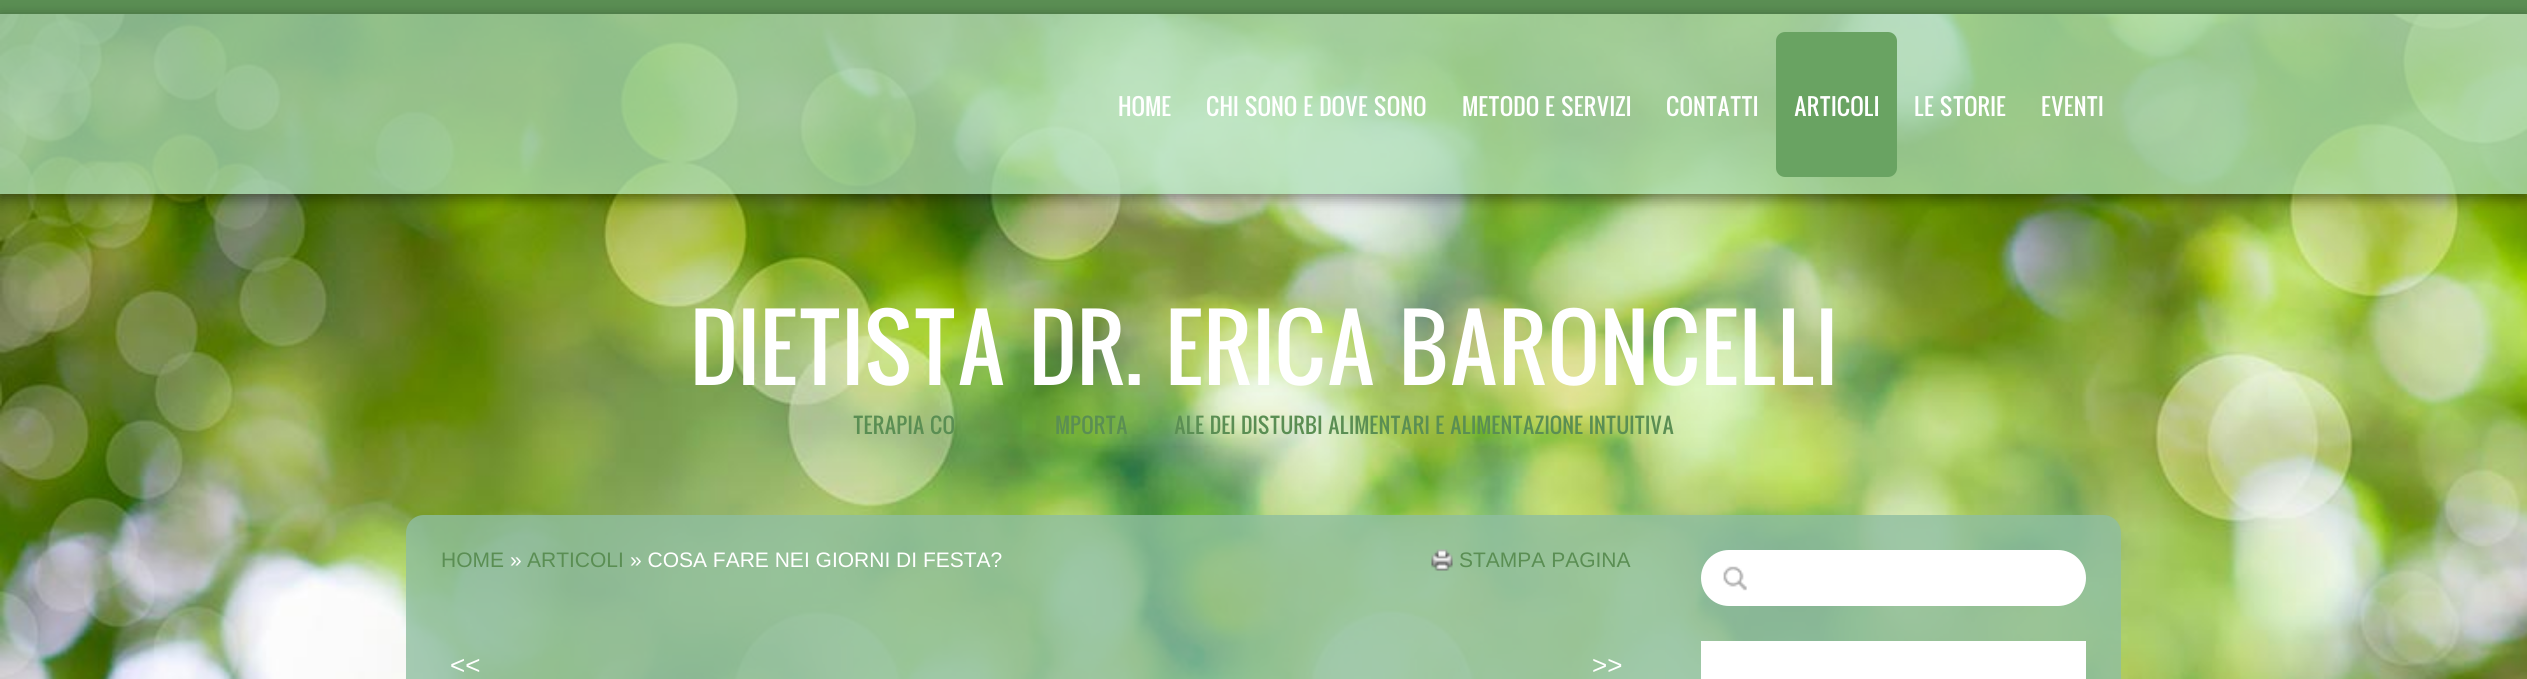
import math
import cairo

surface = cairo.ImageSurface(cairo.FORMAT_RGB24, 2527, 679)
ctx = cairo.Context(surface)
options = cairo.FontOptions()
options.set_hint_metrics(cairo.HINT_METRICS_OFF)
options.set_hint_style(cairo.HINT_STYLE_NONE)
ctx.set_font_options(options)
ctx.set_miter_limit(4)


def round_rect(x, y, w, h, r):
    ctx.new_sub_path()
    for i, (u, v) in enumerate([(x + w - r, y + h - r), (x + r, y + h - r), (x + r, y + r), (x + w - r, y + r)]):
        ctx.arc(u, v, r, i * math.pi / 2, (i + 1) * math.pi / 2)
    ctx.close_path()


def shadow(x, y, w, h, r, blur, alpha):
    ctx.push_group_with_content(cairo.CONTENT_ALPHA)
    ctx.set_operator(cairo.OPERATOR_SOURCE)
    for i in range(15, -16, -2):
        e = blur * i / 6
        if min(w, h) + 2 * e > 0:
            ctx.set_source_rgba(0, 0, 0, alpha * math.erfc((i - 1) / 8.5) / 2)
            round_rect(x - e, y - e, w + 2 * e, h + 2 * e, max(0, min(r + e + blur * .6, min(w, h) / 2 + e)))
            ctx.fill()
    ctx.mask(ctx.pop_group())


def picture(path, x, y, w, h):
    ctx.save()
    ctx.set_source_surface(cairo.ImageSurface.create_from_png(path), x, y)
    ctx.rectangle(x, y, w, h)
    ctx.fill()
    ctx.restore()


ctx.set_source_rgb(1, 1, 1)
ctx.paint()
picture("img1.png", 0, 14, 2527, 665)
ctx.set_source_rgb(0.353, 0.557, 0.325)
ctx.rectangle(0, 0, 2527, 14)
ctx.fill()
ctx.save()
ctx.set_fill_rule(cairo.FILL_RULE_EVEN_ODD)
ctx.new_path()
ctx.move_to(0, 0)
ctx.line_to(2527, 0)
ctx.line_to(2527, 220)
ctx.line_to(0, 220)
ctx.close_path()
ctx.move_to(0, 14)
ctx.line_to(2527, 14)
ctx.line_to(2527, 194)
ctx.line_to(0, 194)
ctx.close_path()
ctx.clip()
ctx.set_source_rgb(0, 0, 0)
shadow(0, 18, 2527, 180, 0, 7, 0.45)
ctx.restore()
ctx.set_source_rgba(0.682, 0.871, 0.714, 0.75)
ctx.rectangle(0, 14, 2527, 180)
ctx.fill()
ctx.select_font_face("Oswald")
ctx.set_font_size(22.75)
ctx.set_source_rgb(1, 1, 1)
ctx.move_to(1118, 116)
ctx.show_text("HOME")
ctx.move_to(1206, 116)
ctx.show_text("CHI SONO E DOVE SONO")
ctx.move_to(1462, 116)
ctx.show_text("METODO E SERVIZI")
ctx.move_to(1666, 116)
ctx.show_text("CONTATTI")
ctx.set_source_rgb(0.412, 0.639, 0.384)
round_rect(1776, 32, 121, 145, 9)
ctx.fill()
ctx.set_source_rgb(1, 1, 1)
ctx.move_to(1794, 116)
ctx.show_text("ARTICOLI")
ctx.move_to(1914, 116)
ctx.show_text("LE STORIE")
ctx.move_to(2041, 116)
ctx.show_text("EVENTI")
ctx.set_font_size(87.5)
ctx.move_to(690, 385)
ctx.show_text("DIETISTA DR. ERICA BARONCELLI")
ctx.set_font_size(21)
ctx.set_source_rgb(0.353, 0.557, 0.325)
ctx.move_to(853, 434)
ctx.show_text("TERAPIA CO")
ctx.move_to(1055, 434)
ctx.show_text("MPORTA")
ctx.move_to(1174, 434)
ctx.show_text("ALE DEI DISTURBI ALIMENTARI E ALIMENTAZIONE INTUITIVA")
ctx.set_source_rgba(0.557, 0.745, 0.627, 0.8)
ctx.new_path()
ctx.move_to(424, 515)
ctx.line_to(1666, 515)
ctx.line_to(1666, 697)
ctx.line_to(424, 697)
ctx.curve_to(414, 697, 406, 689, 406, 679)
ctx.line_to(406, 533)
ctx.curve_to(406, 523, 414, 515, 424, 515)
ctx.close_path()
ctx.fill()
ctx.select_font_face("Liberation Sans")
ctx.set_source_rgb(0.353, 0.557, 0.325)
ctx.move_to(441, 567)
ctx.show_text("HOME")
ctx.set_source_rgb(1, 1, 1)
ctx.move_to(510, 567)
ctx.show_text("»")
ctx.set_source_rgb(0.353, 0.557, 0.325)
ctx.move_to(527, 567)
ctx.show_text("ARTICOLI")
ctx.set_source_rgb(1, 1, 1)
ctx.move_to(630, 567)
ctx.show_text("» COSA FARE NEI GIORNI DI FESTA?")
picture("img2.png", 1431, 549, 22, 22)
ctx.set_source_rgb(0.353, 0.557, 0.325)
ctx.move_to(1459, 567)
ctx.show_text("STAMPA PAGINA")
ctx.set_font_size(26)
ctx.set_source_rgb(1, 1, 1)
ctx.move_to(450, 674)
ctx.show_text("<<")
ctx.move_to(1592, 674)
ctx.show_text(">>")
ctx.set_source_rgba(0.557, 0.745, 0.631, 0.8)
ctx.new_path()
ctx.move_to(1666, 515)
ctx.line_to(2103, 515)
ctx.curve_to(2113, 515, 2121, 523, 2121, 533)
ctx.line_to(2121, 679)
ctx.curve_to(2121, 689, 2113, 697, 2103, 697)
ctx.line_to(1666, 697)
ctx.close_path()
ctx.fill()
ctx.set_source_rgb(1, 1, 1)
round_rect(1701, 550, 385, 56, 28)
ctx.fill()
picture("img3.png", 1723, 566, 24, 25)
ctx.rectangle(1701, 641, 385, 38)
ctx.fill()
surface.write_to_png("page.png")
